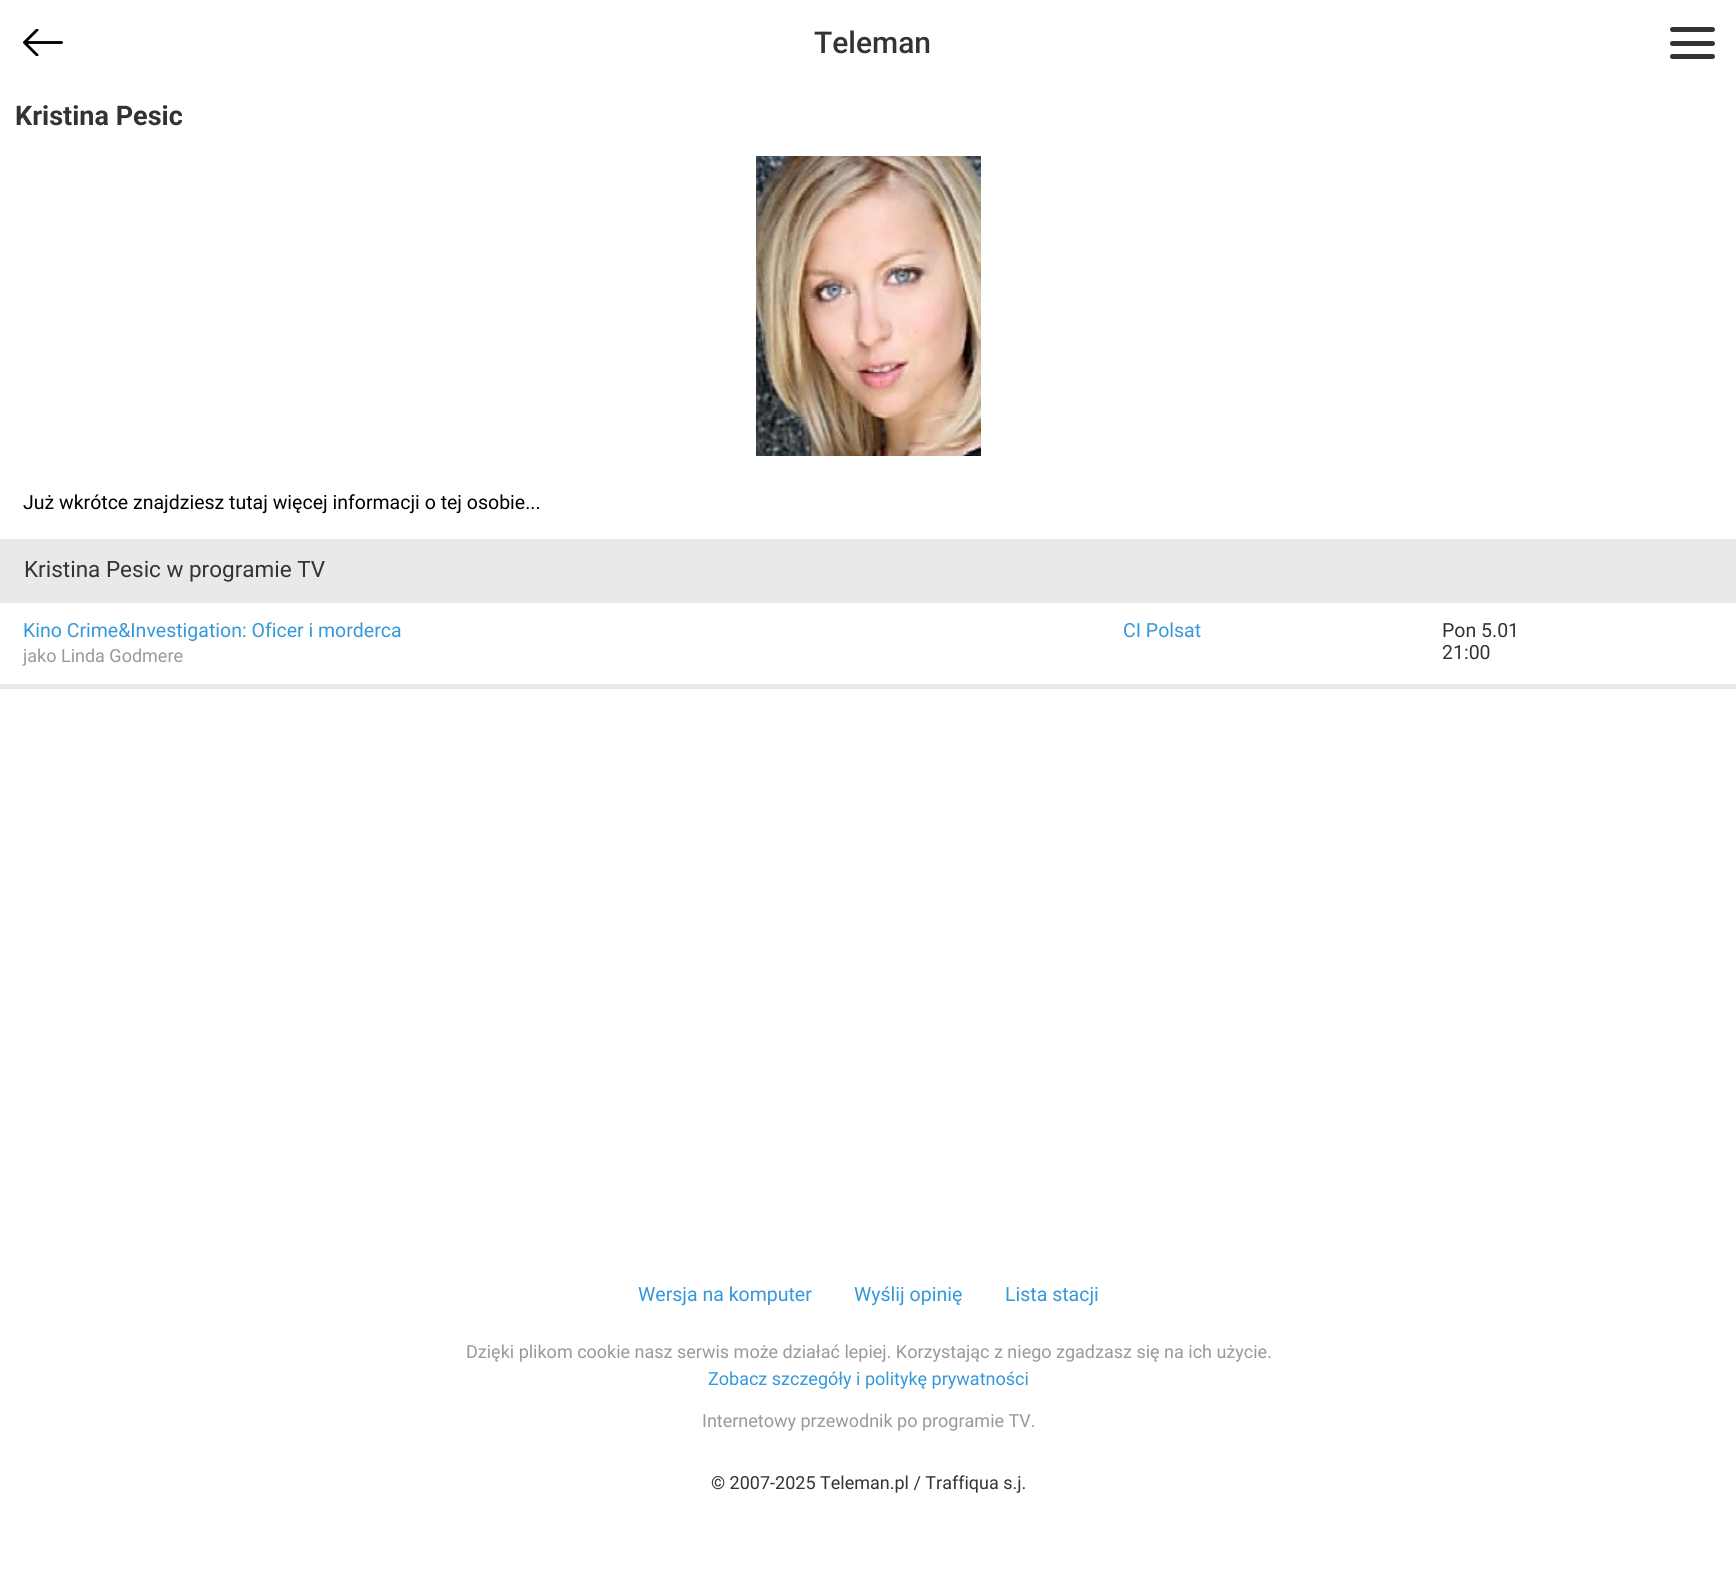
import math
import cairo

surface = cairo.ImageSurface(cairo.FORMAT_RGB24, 1736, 1571)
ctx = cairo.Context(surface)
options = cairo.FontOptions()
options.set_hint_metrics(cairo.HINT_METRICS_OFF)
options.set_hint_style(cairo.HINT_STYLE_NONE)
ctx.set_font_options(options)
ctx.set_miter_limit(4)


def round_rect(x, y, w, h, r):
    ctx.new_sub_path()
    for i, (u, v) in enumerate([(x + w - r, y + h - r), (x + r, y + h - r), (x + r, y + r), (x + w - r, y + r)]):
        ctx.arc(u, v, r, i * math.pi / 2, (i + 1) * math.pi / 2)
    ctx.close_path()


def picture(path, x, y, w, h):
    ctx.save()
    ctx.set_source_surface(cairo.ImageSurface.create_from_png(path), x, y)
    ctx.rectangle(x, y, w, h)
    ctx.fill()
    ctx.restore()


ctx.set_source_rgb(1, 1, 1)
ctx.paint()
picture("img1.png", 23, 29, 40, 27)
ctx.select_font_face("Roboto Medium")
ctx.set_font_size(30)
ctx.set_source_rgb(0.2, 0.2, 0.2)
ctx.move_to(814, 53)
ctx.show_text("Teleman")
round_rect(1670, 27, 45, 5, 2.5)
ctx.fill()
round_rect(1670, 41, 45, 5, 2.5)
ctx.fill()
round_rect(1670, 54, 45, 5, 2.5)
ctx.fill()
ctx.select_font_face("Roboto", cairo.FONT_SLANT_NORMAL, cairo.FONT_WEIGHT_BOLD)
ctx.set_font_size(27)
ctx.move_to(15, 125)
ctx.show_text("Kristina Pesic")
picture("img2.png", 756, 156, 225, 300)
ctx.select_font_face("Roboto")
ctx.set_font_size(19.5)
ctx.set_source_rgb(0, 0, 0)
ctx.move_to(23, 509)
ctx.show_text("Już wkrótce znajdziesz tutaj więcej informacji o tej osobie...")
ctx.set_source_rgb(0.914, 0.914, 0.914)
ctx.rectangle(0, 539, 1736, 64)
ctx.fill()
ctx.set_font_size(22.5)
ctx.set_source_rgb(0.2, 0.2, 0.2)
ctx.move_to(24, 577)
ctx.show_text("Kristina Pesic w programie TV")
ctx.set_font_size(19.5)
ctx.set_source_rgb(0.204, 0.596, 0.859)
ctx.move_to(23, 637)
ctx.show_text("Kino Crime&Investigation: Oficer i morderca")
ctx.set_font_size(18)
ctx.set_source_rgb(0.6, 0.6, 0.6)
ctx.move_to(23, 662)
ctx.show_text("jako Linda Godmere")
ctx.set_font_size(19.5)
ctx.set_source_rgb(0.204, 0.596, 0.859)
ctx.move_to(1123, 637)
ctx.show_text("CI Polsat")
ctx.set_source_rgb(0.914, 0.914, 0.914)
ctx.rectangle(0, 684, 1736, 5)
ctx.fill()
ctx.set_source_rgb(0.2, 0.2, 0.2)
ctx.move_to(1442, 637)
ctx.show_text("Pon 5.01")
ctx.move_to(1442, 659)
ctx.show_text("21:00")
ctx.set_source_rgb(0.204, 0.596, 0.859)
ctx.move_to(638, 1301)
ctx.show_text("Wersja na komputer")
ctx.move_to(854, 1301)
ctx.show_text("Wyślij opinię")
ctx.move_to(1005, 1301)
ctx.show_text("Lista stacji")
ctx.set_font_size(18)
ctx.set_source_rgb(0.6, 0.6, 0.6)
ctx.move_to(466, 1358)
ctx.show_text("Dzięki plikom cookie nasz serwis może działać lepiej. Korzystając z niego zgadzasz się na ich użycie.")
ctx.set_source_rgb(0.204, 0.596, 0.859)
ctx.move_to(708, 1385)
ctx.show_text("Zobacz szczegóły i politykę prywatności")
ctx.set_source_rgb(0.6, 0.6, 0.6)
ctx.move_to(702, 1427)
ctx.show_text("Internetowy przewodnik po programie TV.")
ctx.set_source_rgb(0.2, 0.2, 0.2)
ctx.move_to(711, 1489)
ctx.show_text("© 2007-2025 Teleman.pl / Traffiqua s.j.")
surface.write_to_png("page.png")
